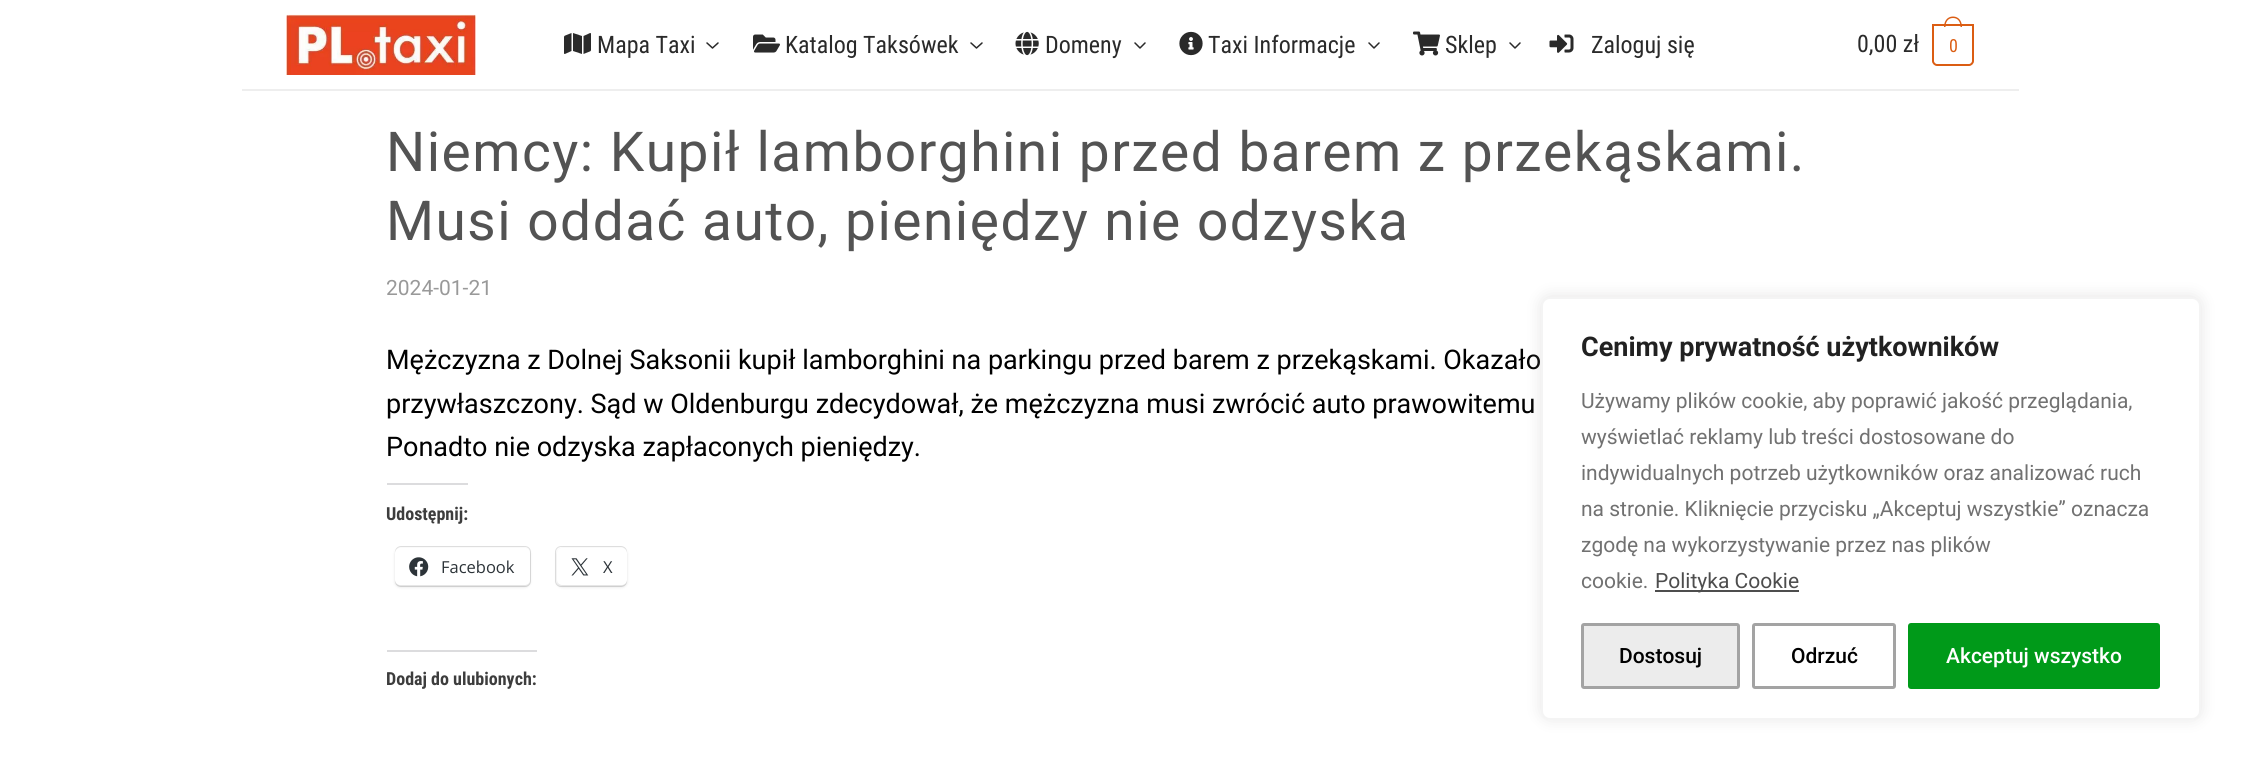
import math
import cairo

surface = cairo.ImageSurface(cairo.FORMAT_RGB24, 2260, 779)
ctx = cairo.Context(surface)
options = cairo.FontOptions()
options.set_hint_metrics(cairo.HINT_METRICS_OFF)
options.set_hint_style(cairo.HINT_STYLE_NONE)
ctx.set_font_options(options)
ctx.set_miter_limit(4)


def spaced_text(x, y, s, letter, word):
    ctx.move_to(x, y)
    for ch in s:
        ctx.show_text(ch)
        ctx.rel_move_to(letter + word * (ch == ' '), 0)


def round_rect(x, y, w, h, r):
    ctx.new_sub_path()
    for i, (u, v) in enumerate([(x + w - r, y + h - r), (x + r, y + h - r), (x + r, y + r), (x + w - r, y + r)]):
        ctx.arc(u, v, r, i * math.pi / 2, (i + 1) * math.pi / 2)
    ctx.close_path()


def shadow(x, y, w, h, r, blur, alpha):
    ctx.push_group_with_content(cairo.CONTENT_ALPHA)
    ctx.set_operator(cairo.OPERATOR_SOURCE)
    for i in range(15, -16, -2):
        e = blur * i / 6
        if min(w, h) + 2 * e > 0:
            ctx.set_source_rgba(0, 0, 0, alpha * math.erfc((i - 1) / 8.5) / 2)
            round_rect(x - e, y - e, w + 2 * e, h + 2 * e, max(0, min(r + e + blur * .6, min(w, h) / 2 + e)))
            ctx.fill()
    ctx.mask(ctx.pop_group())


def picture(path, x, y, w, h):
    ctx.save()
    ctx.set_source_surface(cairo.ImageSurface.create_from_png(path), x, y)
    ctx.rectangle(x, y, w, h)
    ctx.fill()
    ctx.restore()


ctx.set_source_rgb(1, 1, 1)
ctx.paint()
ctx.set_source_rgb(0.933, 0.933, 0.933)
ctx.rectangle(242, 89, 1777, 2)
ctx.fill()
picture("img1.png", 286, 14, 190, 61)
picture("img2.png", 564, 33, 27, 21)
ctx.select_font_face("Roboto Condensed")
ctx.set_font_size(24)
ctx.set_source_rgb(0.165, 0.165, 0.165)
ctx.move_to(597, 53)
ctx.show_text("Mapa Taxi")
ctx.new_path()
ctx.move_to(718, 43)
ctx.line_to(712.5, 48)
ctx.line_to(707, 43)
ctx.set_line_width(1.5)
ctx.set_line_cap(cairo.LINE_CAP_ROUND)
ctx.set_line_join(cairo.LINE_JOIN_ROUND)
ctx.stroke()
picture("img3.png", 753, 34, 27, 19)
ctx.move_to(785, 53)
ctx.show_text("Katalog Taksówek")
ctx.new_path()
ctx.move_to(982, 43)
ctx.line_to(976.5, 48)
ctx.line_to(971, 43)
ctx.stroke()
picture("img4.png", 1015, 31, 24, 25)
ctx.move_to(1045, 53)
ctx.show_text("Domeny")
ctx.new_path()
ctx.move_to(1145, 43)
ctx.line_to(1140, 48)
ctx.line_to(1135, 43)
ctx.stroke()
picture("img5.png", 1179, 31, 24, 25)
ctx.move_to(1208, 53)
ctx.show_text("Taxi Informacje")
ctx.new_path()
ctx.move_to(1379, 43)
ctx.line_to(1374, 48)
ctx.line_to(1369, 43)
ctx.stroke()
picture("img6.png", 1413, 31, 27, 25)
ctx.move_to(1445, 53)
ctx.show_text("Sklep")
ctx.new_path()
ctx.move_to(1520, 43)
ctx.line_to(1515, 48)
ctx.line_to(1510, 43)
ctx.stroke()
picture("img7.png", 1549, 34, 25, 19)
ctx.move_to(1591, 53)
ctx.show_text("Zaloguj się")
ctx.move_to(1857, 52)
ctx.show_text("0,00 zł")
ctx.new_path()
ctx.move_to(1933, 25)
ctx.line_to(1973, 25)
ctx.line_to(1973, 61)
ctx.curve_to(1973, 63, 1971, 65, 1969, 65)
ctx.line_to(1937, 65)
ctx.curve_to(1935, 65, 1933, 63, 1933, 61)
ctx.close_path()
ctx.set_source_rgb(0.859, 0.365, 0.078)
ctx.set_line_width(2)
ctx.set_line_cap(cairo.LINE_CAP_BUTT)
ctx.set_line_join(cairo.LINE_JOIN_MITER)
ctx.stroke()
ctx.set_fill_rule(cairo.FILL_RULE_EVEN_ODD)
ctx.new_path()
ctx.move_to(1953, 16.5)
ctx.curve_to(1959, 16.5, 1962, 21.5, 1962, 27)
ctx.line_to(1944, 27)
ctx.curve_to(1944, 21.5, 1947, 16.5, 1953, 16.5)
ctx.close_path()
ctx.move_to(1953, 18)
ctx.curve_to(1958.5, 18, 1960.5, 22.5, 1960.5, 27)
ctx.line_to(1945.5, 27)
ctx.curve_to(1945.5, 22.5, 1947.5, 18, 1953, 18)
ctx.close_path()
ctx.fill()
ctx.set_font_size(18)
spaced_text(1949, 52, "0", -1, 0)
ctx.select_font_face("Roboto")
ctx.set_font_size(55)
ctx.set_source_rgb(0.325, 0.325, 0.325)
spaced_text(386, 171, "Niemcy: Kupił lamborghini przed barem z przekąskami.", 1.5, 0)
spaced_text(386, 240, "Musi oddać auto, pieniędzy nie odzyska", 1.5, 0)
ctx.set_font_size(21)
ctx.set_source_rgb(0.6, 0.6, 0.6)
ctx.move_to(386, 295)
ctx.show_text("2024-01-21")
ctx.set_font_size(27)
ctx.set_source_rgb(0, 0, 0)
ctx.move_to(386, 369)
ctx.show_text("Mężczyzna z Dolnej Saksonii kupił lamborghini na parkingu przed barem z przekąskami. Okazało")
ctx.move_to(386, 413)
ctx.show_text("przywłaszczony. Sąd w Oldenburgu zdecydował, że mężczyzna musi zwrócić auto prawowitemu")
ctx.move_to(386, 456)
ctx.show_text("Ponadto nie odzyska zapłaconych pieniędzy.")
ctx.set_source_rgb(0.863, 0.863, 0.871)
ctx.rectangle(387, 483, 81, 2)
ctx.fill()
ctx.select_font_face("Roboto Condensed", cairo.FONT_SLANT_NORMAL, cairo.FONT_WEIGHT_BOLD)
ctx.set_font_size(18)
ctx.set_source_rgb(0.239, 0.239, 0.239)
ctx.move_to(386, 520)
ctx.show_text("Udostępnij:")
round_rect(395.5, 546.5, 135, 40, 5.5)
ctx.set_source_rgb(0.878, 0.878, 0.878)
ctx.set_line_width(1)
ctx.stroke()
ctx.set_source_rgb(0, 0, 0)
shadow(395, 549, 135, 38, 5, 1.5, 0.12)
ctx.set_source_rgb(1, 1, 1)
round_rect(395, 548, 135, 37, 5)
ctx.fill()
picture("img8.png", 409, 557, 20, 20)
ctx.select_font_face("Open Sans")
ctx.set_font_size(16.5)
ctx.set_source_rgb(0.173, 0.2, 0.22)
ctx.move_to(441, 573)
ctx.show_text("Facebook")
round_rect(555.5, 546.5, 71, 40, 5.5)
ctx.set_source_rgb(0.878, 0.878, 0.878)
ctx.stroke()
ctx.set_source_rgb(0, 0, 0)
shadow(557, 549, 70, 38, 5, 1.5, 0.12)
ctx.set_source_rgb(1, 1, 1)
round_rect(557, 548, 70, 37, 5)
ctx.fill()
picture("img9.png", 571, 558, 18, 18)
ctx.set_source_rgb(0.173, 0.2, 0.22)
ctx.move_to(603, 573)
ctx.show_text("X")
ctx.set_source_rgb(0.863, 0.863, 0.871)
ctx.rectangle(387, 650, 150, 2)
ctx.fill()
ctx.select_font_face("Roboto Condensed", cairo.FONT_SLANT_NORMAL, cairo.FONT_WEIGHT_BOLD)
ctx.set_font_size(18)
ctx.set_source_rgb(0.239, 0.239, 0.239)
ctx.move_to(386, 685)
ctx.show_text("Dodaj do ulubionych:")
ctx.set_source_rgb(0.675, 0.671, 0.671)
shadow(1541, 296, 660, 423, 9, 7.5, 0.3)
ctx.set_source_rgb(1, 1, 1)
round_rect(1542, 298, 658, 421, 8)
ctx.fill_preserve()
ctx.set_source_rgb(0.957, 0.957, 0.957)
ctx.set_line_width(2)
ctx.stroke()
ctx.select_font_face("Roboto", cairo.FONT_SLANT_NORMAL, cairo.FONT_WEIGHT_BOLD)
ctx.set_font_size(27)
ctx.set_source_rgb(0.129, 0.129, 0.129)
ctx.move_to(1581, 356)
ctx.show_text("Cenimy prywatność użytkowników")
ctx.select_font_face("Roboto")
ctx.set_font_size(21)
ctx.set_source_rgb(0.443, 0.443, 0.443)
ctx.move_to(1581, 408)
ctx.show_text("Używamy plików cookie, aby poprawić jakość przeglądania,")
ctx.move_to(1581, 444)
ctx.show_text("wyświetlać reklamy lub treści dostosowane do")
ctx.move_to(1581, 480)
ctx.show_text("indywidualnych potrzeb użytkowników oraz analizować ruch")
ctx.move_to(1581, 516)
ctx.show_text("na stronie. Kliknięcie przycisku „Akceptuj wszystkie” oznacza")
ctx.move_to(1581, 552)
ctx.show_text("zgodę na wykorzystywanie przez nas plików")
ctx.move_to(1581, 588)
ctx.show_text("cookie.")
ctx.set_source_rgb(0.302, 0.302, 0.302)
ctx.rectangle(1655, 590, 144, 2)
ctx.fill()
ctx.move_to(1655, 588)
ctx.show_text("Polityka Cookie")
ctx.set_source_rgb(0.925, 0.925, 0.925)
round_rect(1582.5, 624.5, 156, 63, 1.5)
ctx.fill_preserve()
ctx.set_source_rgb(0.639, 0.639, 0.639)
ctx.set_line_width(3)
ctx.stroke()
ctx.select_font_face("Roboto Medium")
ctx.set_source_rgb(0, 0, 0)
ctx.move_to(1619, 663)
ctx.show_text("Dostosuj")
round_rect(1753.5, 624.5, 141, 63, 1.5)
ctx.set_source_rgb(0.639, 0.639, 0.639)
ctx.stroke()
ctx.set_source_rgb(0, 0, 0)
ctx.move_to(1791, 663)
ctx.show_text("Odrzuć")
ctx.set_source_rgb(0, 0.604, 0.098)
round_rect(1909.5, 624.5, 249, 63, 1.5)
ctx.fill_preserve()
ctx.stroke()
ctx.set_source_rgb(1, 1, 1)
ctx.move_to(1946, 663)
ctx.show_text("Akceptuj wszystko")
surface.write_to_png("page.png")
